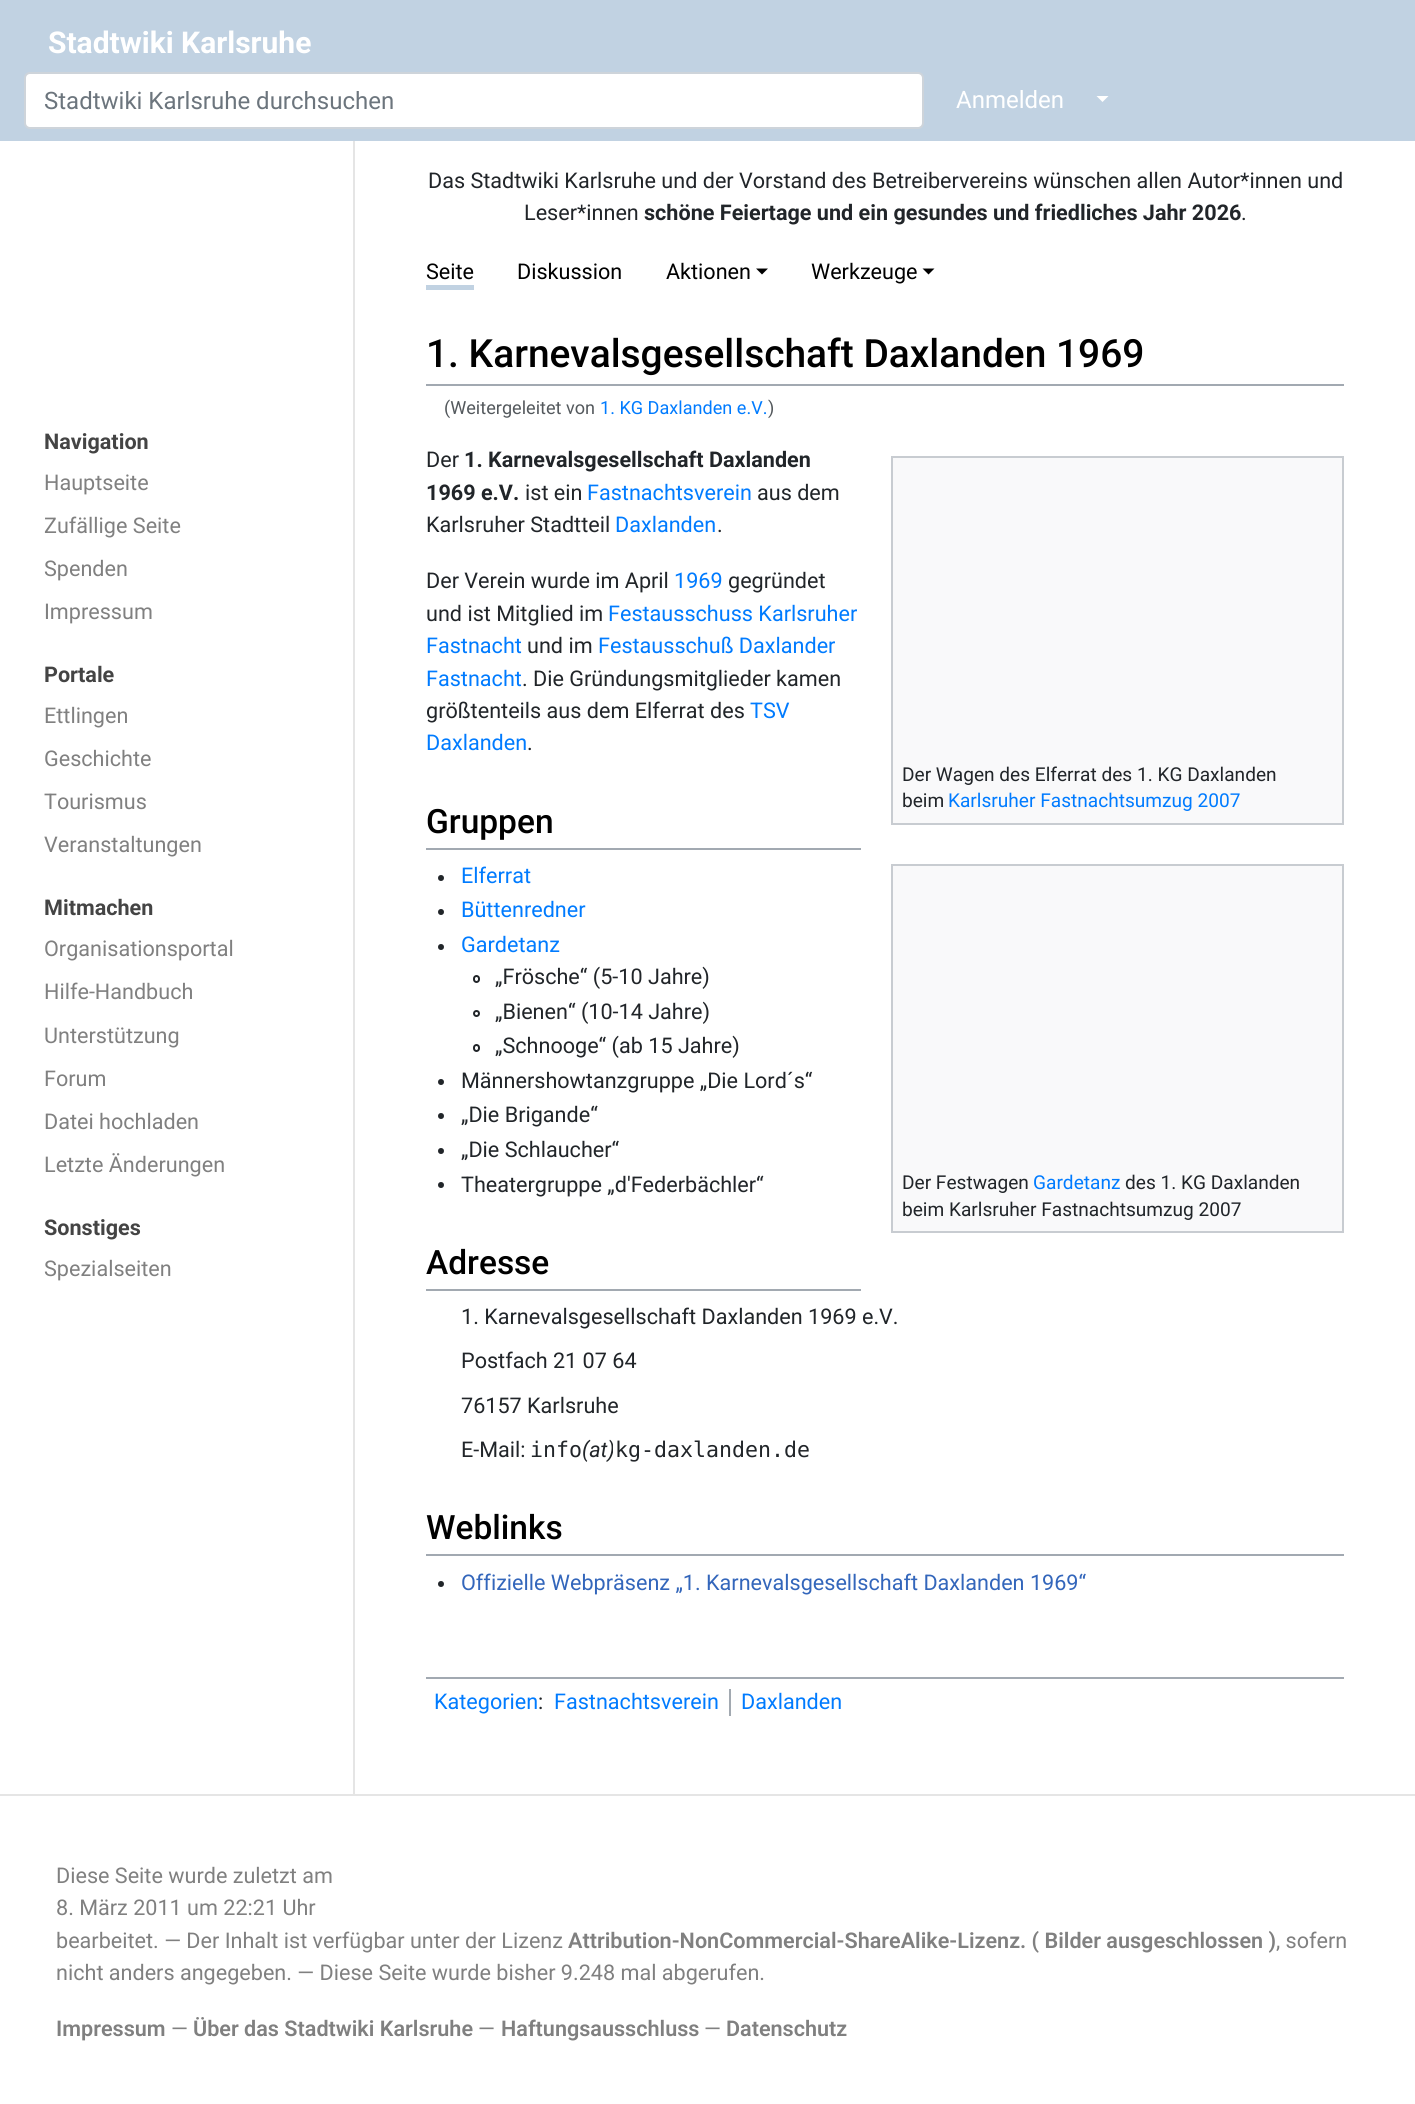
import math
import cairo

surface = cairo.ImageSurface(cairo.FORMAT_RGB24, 1415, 2104)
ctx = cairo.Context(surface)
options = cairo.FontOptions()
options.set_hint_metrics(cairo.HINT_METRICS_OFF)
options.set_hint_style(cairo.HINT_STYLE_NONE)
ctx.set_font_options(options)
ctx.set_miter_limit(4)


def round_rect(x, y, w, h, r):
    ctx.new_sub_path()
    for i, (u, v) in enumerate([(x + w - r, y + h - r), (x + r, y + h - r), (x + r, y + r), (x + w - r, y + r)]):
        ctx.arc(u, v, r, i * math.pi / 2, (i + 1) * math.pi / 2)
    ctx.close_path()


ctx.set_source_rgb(1, 1, 1)
ctx.paint()
ctx.set_source_rgb(0.757, 0.824, 0.886)
ctx.rectangle(0, 0, 1415, 141)
ctx.fill()
ctx.select_font_face("Roboto", cairo.FONT_SLANT_NORMAL, cairo.FONT_WEIGHT_BOLD)
ctx.set_font_size(30)
ctx.set_source_rgb(1, 1, 1)
ctx.move_to(48, 53)
ctx.show_text("Stadtwiki Karlsruhe")
round_rect(25, 73, 898, 55, 5)
ctx.fill_preserve()
ctx.set_source_rgb(0.808, 0.831, 0.855)
ctx.stroke()
ctx.select_font_face("Roboto")
ctx.set_font_size(24)
ctx.set_source_rgb(0.424, 0.459, 0.49)
ctx.move_to(44, 109)
ctx.show_text("Stadtwiki Karlsruhe durchsuchen")
ctx.set_source_rgb(1, 1, 1)
ctx.move_to(956, 108)
ctx.show_text("Anmelden")
ctx.new_path()
ctx.move_to(1096.5, 96)
ctx.line_to(1108.5, 96)
ctx.line_to(1102.5, 102)
ctx.close_path()
ctx.fill()
ctx.set_source_rgb(0.898, 0.898, 0.898)
ctx.rectangle(353, 141, 2, 1653)
ctx.fill()
ctx.select_font_face("Roboto", cairo.FONT_SLANT_NORMAL, cairo.FONT_WEIGHT_BOLD)
ctx.set_font_size(21.6)
ctx.set_source_rgb(0.267, 0.267, 0.267)
ctx.move_to(44, 449)
ctx.show_text("Navigation")
ctx.select_font_face("Roboto")
ctx.set_source_rgb(0.502, 0.502, 0.502)
ctx.move_to(44, 490)
ctx.show_text("Hauptseite")
ctx.move_to(44, 533)
ctx.show_text("Zufällige Seite")
ctx.move_to(44, 576)
ctx.show_text("Spenden")
ctx.move_to(44, 619)
ctx.show_text("Impressum")
ctx.select_font_face("Roboto", cairo.FONT_SLANT_NORMAL, cairo.FONT_WEIGHT_BOLD)
ctx.set_source_rgb(0.267, 0.267, 0.267)
ctx.move_to(44, 682)
ctx.show_text("Portale")
ctx.select_font_face("Roboto")
ctx.set_source_rgb(0.502, 0.502, 0.502)
ctx.move_to(44, 723)
ctx.show_text("Ettlingen")
ctx.move_to(44, 766)
ctx.show_text("Geschichte")
ctx.move_to(44, 809)
ctx.show_text("Tourismus")
ctx.move_to(44, 852)
ctx.show_text("Veranstaltungen")
ctx.select_font_face("Roboto", cairo.FONT_SLANT_NORMAL, cairo.FONT_WEIGHT_BOLD)
ctx.set_source_rgb(0.267, 0.267, 0.267)
ctx.move_to(44, 915)
ctx.show_text("Mitmachen")
ctx.select_font_face("Roboto")
ctx.set_source_rgb(0.502, 0.502, 0.502)
ctx.move_to(44, 956)
ctx.show_text("Organisationsportal")
ctx.move_to(44, 999)
ctx.show_text("Hilfe-Handbuch")
ctx.move_to(44, 1043)
ctx.show_text("Unterstützung")
ctx.move_to(44, 1086)
ctx.show_text("Forum")
ctx.move_to(44, 1129)
ctx.show_text("Datei hochladen")
ctx.move_to(44, 1172)
ctx.show_text("Letzte Änderungen")
ctx.select_font_face("Roboto", cairo.FONT_SLANT_NORMAL, cairo.FONT_WEIGHT_BOLD)
ctx.set_source_rgb(0.267, 0.267, 0.267)
ctx.move_to(44, 1235)
ctx.show_text("Sonstiges")
ctx.select_font_face("Roboto")
ctx.set_source_rgb(0.502, 0.502, 0.502)
ctx.move_to(44, 1276)
ctx.show_text("Spezialseiten")
ctx.set_source_rgb(0.129, 0.145, 0.161)
ctx.move_to(428, 188)
ctx.show_text("Das Stadtwiki Karlsruhe und der Vorstand des Betreibervereins wünschen allen Autor*innen und")
ctx.move_to(524, 220)
ctx.show_text("Leser*innen")
ctx.select_font_face("Roboto", cairo.FONT_SLANT_NORMAL, cairo.FONT_WEIGHT_BOLD)
ctx.move_to(644, 220)
ctx.show_text("schöne Feiertage und ein gesundes und friedliches Jahr 2026")
ctx.select_font_face("Roboto")
ctx.move_to(1241, 220)
ctx.show_text(".")
ctx.set_source_rgb(0, 0, 0)
ctx.move_to(426, 279)
ctx.show_text("Seite")
ctx.set_source_rgb(0.757, 0.824, 0.886)
ctx.rectangle(426, 285, 48, 5)
ctx.fill()
ctx.set_source_rgb(0, 0, 0)
ctx.move_to(517, 279)
ctx.show_text("Diskussion")
ctx.move_to(666, 279)
ctx.show_text("Aktionen")
ctx.new_path()
ctx.move_to(756, 268.5)
ctx.line_to(768, 268.5)
ctx.line_to(762, 274.5)
ctx.close_path()
ctx.fill()
ctx.move_to(811, 279)
ctx.show_text("Werkzeuge")
ctx.new_path()
ctx.move_to(922.5, 268.5)
ctx.line_to(934.5, 268.5)
ctx.line_to(928.5, 274.5)
ctx.close_path()
ctx.fill()
ctx.set_source_rgb(0.635, 0.663, 0.694)
ctx.rectangle(426, 384, 918, 2)
ctx.fill()
ctx.select_font_face("Roboto Medium")
ctx.set_font_size(38.9)
ctx.set_source_rgb(0, 0, 0)
ctx.move_to(426, 367)
ctx.show_text("1. Karnevalsgesellschaft Daxlanden 1969")
ctx.select_font_face("Roboto")
ctx.set_font_size(18.1)
ctx.set_source_rgb(0.329, 0.349, 0.365)
ctx.move_to(444, 414)
ctx.show_text("(Weitergeleitet von")
ctx.set_source_rgb(0, 0.482, 1)
ctx.move_to(600, 414)
ctx.show_text("1. KG Daxlanden e.V.")
ctx.set_source_rgb(0.329, 0.349, 0.365)
ctx.move_to(768, 414)
ctx.show_text(")")
ctx.set_font_size(21.6)
ctx.set_source_rgb(0.129, 0.145, 0.161)
ctx.move_to(426, 467)
ctx.show_text("Der")
ctx.select_font_face("Roboto", cairo.FONT_SLANT_NORMAL, cairo.FONT_WEIGHT_BOLD)
ctx.move_to(464, 467)
ctx.show_text("1. Karnevalsgesellschaft Daxlanden")
ctx.move_to(426, 500)
ctx.show_text("1969 e.V.")
ctx.select_font_face("Roboto")
ctx.move_to(525, 500)
ctx.show_text("ist ein")
ctx.set_source_rgb(0, 0.482, 1)
ctx.move_to(587, 500)
ctx.show_text("Fastnachtsverein")
ctx.set_source_rgb(0.129, 0.145, 0.161)
ctx.move_to(757, 500)
ctx.show_text("aus dem")
ctx.move_to(426, 532)
ctx.show_text("Karlsruher Stadtteil")
ctx.set_source_rgb(0, 0.482, 1)
ctx.move_to(615, 532)
ctx.show_text("Daxlanden")
ctx.set_source_rgb(0.129, 0.145, 0.161)
ctx.move_to(717, 532)
ctx.show_text(".")
ctx.move_to(426, 588)
ctx.show_text("Der Verein wurde im April")
ctx.set_source_rgb(0, 0.482, 1)
ctx.move_to(674, 588)
ctx.show_text("1969")
ctx.set_source_rgb(0.129, 0.145, 0.161)
ctx.move_to(728, 588)
ctx.show_text("gegründet")
ctx.move_to(426, 621)
ctx.show_text("und ist Mitglied im")
ctx.set_source_rgb(0, 0.482, 1)
ctx.move_to(608, 621)
ctx.show_text("Festausschuss Karlsruher")
ctx.move_to(426, 653)
ctx.show_text("Fastnacht")
ctx.set_source_rgb(0.129, 0.145, 0.161)
ctx.move_to(527, 653)
ctx.show_text("und im")
ctx.set_source_rgb(0, 0.482, 1)
ctx.move_to(598, 653)
ctx.show_text("Festausschuß Daxlander")
ctx.move_to(426, 686)
ctx.show_text("Fastnacht")
ctx.set_source_rgb(0.129, 0.145, 0.161)
ctx.move_to(522, 686)
ctx.show_text(". Die Gründungsmitglieder kamen")
ctx.move_to(426, 718)
ctx.show_text("größtenteils aus dem Elferrat des")
ctx.set_source_rgb(0, 0.482, 1)
ctx.move_to(750, 718)
ctx.show_text("TSV")
ctx.move_to(426, 750)
ctx.show_text("Daxlanden")
ctx.set_source_rgb(0.129, 0.145, 0.161)
ctx.move_to(527, 750)
ctx.show_text(".")
ctx.set_source_rgb(0.973, 0.976, 0.98)
ctx.rectangle(892, 457, 451, 367)
ctx.fill_preserve()
ctx.set_source_rgb(0.784, 0.8, 0.82)
ctx.stroke()
ctx.set_font_size(19.1)
ctx.set_source_rgb(0.129, 0.145, 0.161)
ctx.move_to(902, 781)
ctx.show_text("Der Wagen des Elferrat des 1. KG Daxlanden")
ctx.move_to(902, 807)
ctx.show_text("beim")
ctx.set_source_rgb(0, 0.482, 1)
ctx.move_to(948, 807)
ctx.show_text("Karlsruher Fastnachtsumzug 2007")
ctx.set_source_rgb(0.635, 0.663, 0.694)
ctx.rectangle(426, 848, 435, 2)
ctx.fill()
ctx.select_font_face("Roboto Medium")
ctx.set_font_size(33.5)
ctx.set_source_rgb(0, 0, 0)
ctx.move_to(426, 833)
ctx.show_text("Gruppen")
ctx.set_source_rgb(0.129, 0.145, 0.161)
ctx.new_path()
ctx.arc(441, 878, 3, 0, 2 * math.pi)
ctx.fill()
ctx.select_font_face("Roboto")
ctx.set_font_size(21.6)
ctx.set_source_rgb(0, 0.482, 1)
ctx.move_to(461, 883)
ctx.show_text("Elferrat")
ctx.set_source_rgb(0.129, 0.145, 0.161)
ctx.new_path()
ctx.arc(441, 912, 3, 0, 2 * math.pi)
ctx.fill()
ctx.set_source_rgb(0, 0.482, 1)
ctx.move_to(461, 917)
ctx.show_text("Büttenredner")
ctx.set_source_rgb(0.129, 0.145, 0.161)
ctx.new_path()
ctx.arc(441, 947, 3, 0, 2 * math.pi)
ctx.fill()
ctx.set_source_rgb(0, 0.482, 1)
ctx.move_to(461, 952)
ctx.show_text("Gardetanz")
round_rect(474, 976, 5, 6, 2.5)
ctx.set_source_rgb(0.129, 0.145, 0.161)
ctx.stroke()
ctx.move_to(495, 984)
ctx.show_text("„Frösche“ (5-10 Jahre)")
ctx.new_path()
ctx.arc(476.5, 1013.5, 2.5, 0, 2 * math.pi)
ctx.stroke()
ctx.move_to(495, 1019)
ctx.show_text("„Bienen“ (10-14 Jahre)")
round_rect(474, 1045, 5, 6, 2.5)
ctx.stroke()
ctx.move_to(495, 1053)
ctx.show_text("„Schnooge“ (ab 15 Jahre)")
ctx.new_path()
ctx.arc(441, 1082, 3, 0, 2 * math.pi)
ctx.fill()
ctx.move_to(461, 1088)
ctx.show_text("Männershowtanzgruppe „Die Lord´s“")
ctx.new_path()
ctx.arc(441, 1116, 3, 0, 2 * math.pi)
ctx.fill()
ctx.move_to(461, 1122)
ctx.show_text("„Die Brigande“")
ctx.new_path()
ctx.arc(441, 1151, 3, 0, 2 * math.pi)
ctx.fill()
ctx.move_to(461, 1157)
ctx.show_text("„Die Schlaucher“")
ctx.new_path()
ctx.arc(441, 1185, 3, 0, 2 * math.pi)
ctx.fill()
ctx.move_to(461, 1192)
ctx.show_text("Theatergruppe „d'Federbächler“")
ctx.set_source_rgb(0.973, 0.976, 0.98)
ctx.rectangle(892, 865, 451, 367)
ctx.fill_preserve()
ctx.set_source_rgb(0.784, 0.8, 0.82)
ctx.stroke()
ctx.set_font_size(19.1)
ctx.set_source_rgb(0.129, 0.145, 0.161)
ctx.move_to(902, 1189)
ctx.show_text("Der Festwagen")
ctx.set_source_rgb(0, 0.482, 1)
ctx.move_to(1033, 1189)
ctx.show_text("Gardetanz")
ctx.set_source_rgb(0.129, 0.145, 0.161)
ctx.move_to(1125, 1189)
ctx.show_text("des 1. KG Daxlanden")
ctx.move_to(902, 1216)
ctx.show_text("beim Karlsruher Fastnachtsumzug 2007")
ctx.set_source_rgb(0.635, 0.663, 0.694)
ctx.rectangle(426, 1289, 435, 2)
ctx.fill()
ctx.select_font_face("Roboto Medium")
ctx.set_font_size(33.5)
ctx.set_source_rgb(0, 0, 0)
ctx.move_to(426, 1274)
ctx.show_text("Adresse")
ctx.select_font_face("Roboto")
ctx.set_font_size(21.6)
ctx.set_source_rgb(0.129, 0.145, 0.161)
ctx.move_to(461, 1324)
ctx.show_text("1. Karnevalsgesellschaft Daxlanden 1969 e.V.")
ctx.move_to(461, 1368)
ctx.show_text("Postfach 21 07 64")
ctx.move_to(461, 1413)
ctx.show_text("76157 Karlsruhe")
ctx.move_to(461, 1457)
ctx.show_text("E-Mail:")
ctx.select_font_face("DejaVu Sans Mono")
ctx.move_to(530, 1457)
ctx.show_text("info")
ctx.select_font_face("Roboto", cairo.FONT_SLANT_ITALIC)
ctx.move_to(582, 1457)
ctx.show_text("(at)")
ctx.select_font_face("DejaVu Sans Mono")
ctx.move_to(615, 1457)
ctx.show_text("kg-daxlanden.de")
ctx.set_source_rgb(0.635, 0.663, 0.694)
ctx.rectangle(426, 1554, 918, 2)
ctx.fill()
ctx.select_font_face("Roboto Medium")
ctx.set_font_size(33.5)
ctx.set_source_rgb(0, 0, 0)
ctx.move_to(426, 1539)
ctx.show_text("Weblinks")
ctx.set_source_rgb(0.129, 0.145, 0.161)
ctx.new_path()
ctx.arc(441, 1584, 3, 0, 2 * math.pi)
ctx.fill()
ctx.select_font_face("Roboto")
ctx.set_font_size(21.6)
ctx.set_source_rgb(0.2, 0.4, 0.733)
ctx.move_to(461, 1590)
ctx.show_text("Offizielle Webpräsenz „1. Karnevalsgesellschaft Daxlanden 1969“")
ctx.set_source_rgb(0.635, 0.663, 0.694)
ctx.rectangle(426, 1677, 918, 2)
ctx.fill()
ctx.set_source_rgb(0, 0.482, 1)
ctx.move_to(434, 1709)
ctx.show_text("Kategorien")
ctx.set_source_rgb(0.129, 0.145, 0.161)
ctx.move_to(538, 1709)
ctx.show_text(":")
ctx.set_source_rgb(0, 0.482, 1)
ctx.move_to(554, 1709)
ctx.show_text("Fastnachtsverein")
ctx.set_source_rgb(0.635, 0.663, 0.694)
ctx.rectangle(729, 1689, 2, 27)
ctx.fill()
ctx.set_source_rgb(0, 0.482, 1)
ctx.move_to(741, 1709)
ctx.show_text("Daxlanden")
ctx.set_source_rgb(0.898, 0.898, 0.898)
ctx.rectangle(0, 1794, 1415, 2)
ctx.fill()
ctx.set_source_rgb(0.502, 0.502, 0.502)
ctx.move_to(56, 1883)
ctx.show_text("Diese Seite wurde zuletzt am")
ctx.move_to(56, 1915)
ctx.show_text("8. März 2011 um 22:21 Uhr")
ctx.move_to(56, 1948)
ctx.show_text("bearbeitet. ― Der Inhalt ist verfügbar unter der Lizenz")
ctx.select_font_face("Roboto SemiBold")
ctx.move_to(568, 1948)
ctx.show_text("Attribution-NonCommercial-ShareAlike-Lizenz. ( Bilder ausgeschlossen )")
ctx.select_font_face("Roboto")
ctx.move_to(1276, 1948)
ctx.show_text(", sofern")
ctx.move_to(56, 1980)
ctx.show_text("nicht anders angegeben. ― Diese Seite wurde bisher 9.248 mal abgerufen.")
ctx.select_font_face("Roboto SemiBold")
ctx.move_to(56, 2036)
ctx.show_text("Impressum")
ctx.select_font_face("Roboto")
ctx.move_to(171, 2036)
ctx.show_text("―")
ctx.select_font_face("Roboto SemiBold")
ctx.move_to(193, 2036)
ctx.show_text("Über das Stadtwiki Karlsruhe")
ctx.select_font_face("Roboto")
ctx.move_to(478, 2036)
ctx.show_text("―")
ctx.select_font_face("Roboto SemiBold")
ctx.move_to(501, 2036)
ctx.show_text("Haftungsausschluss")
ctx.select_font_face("Roboto")
ctx.move_to(704, 2036)
ctx.show_text("―")
ctx.select_font_face("Roboto SemiBold")
ctx.move_to(726, 2036)
ctx.show_text("Datenschutz")
surface.write_to_png("page.png")
